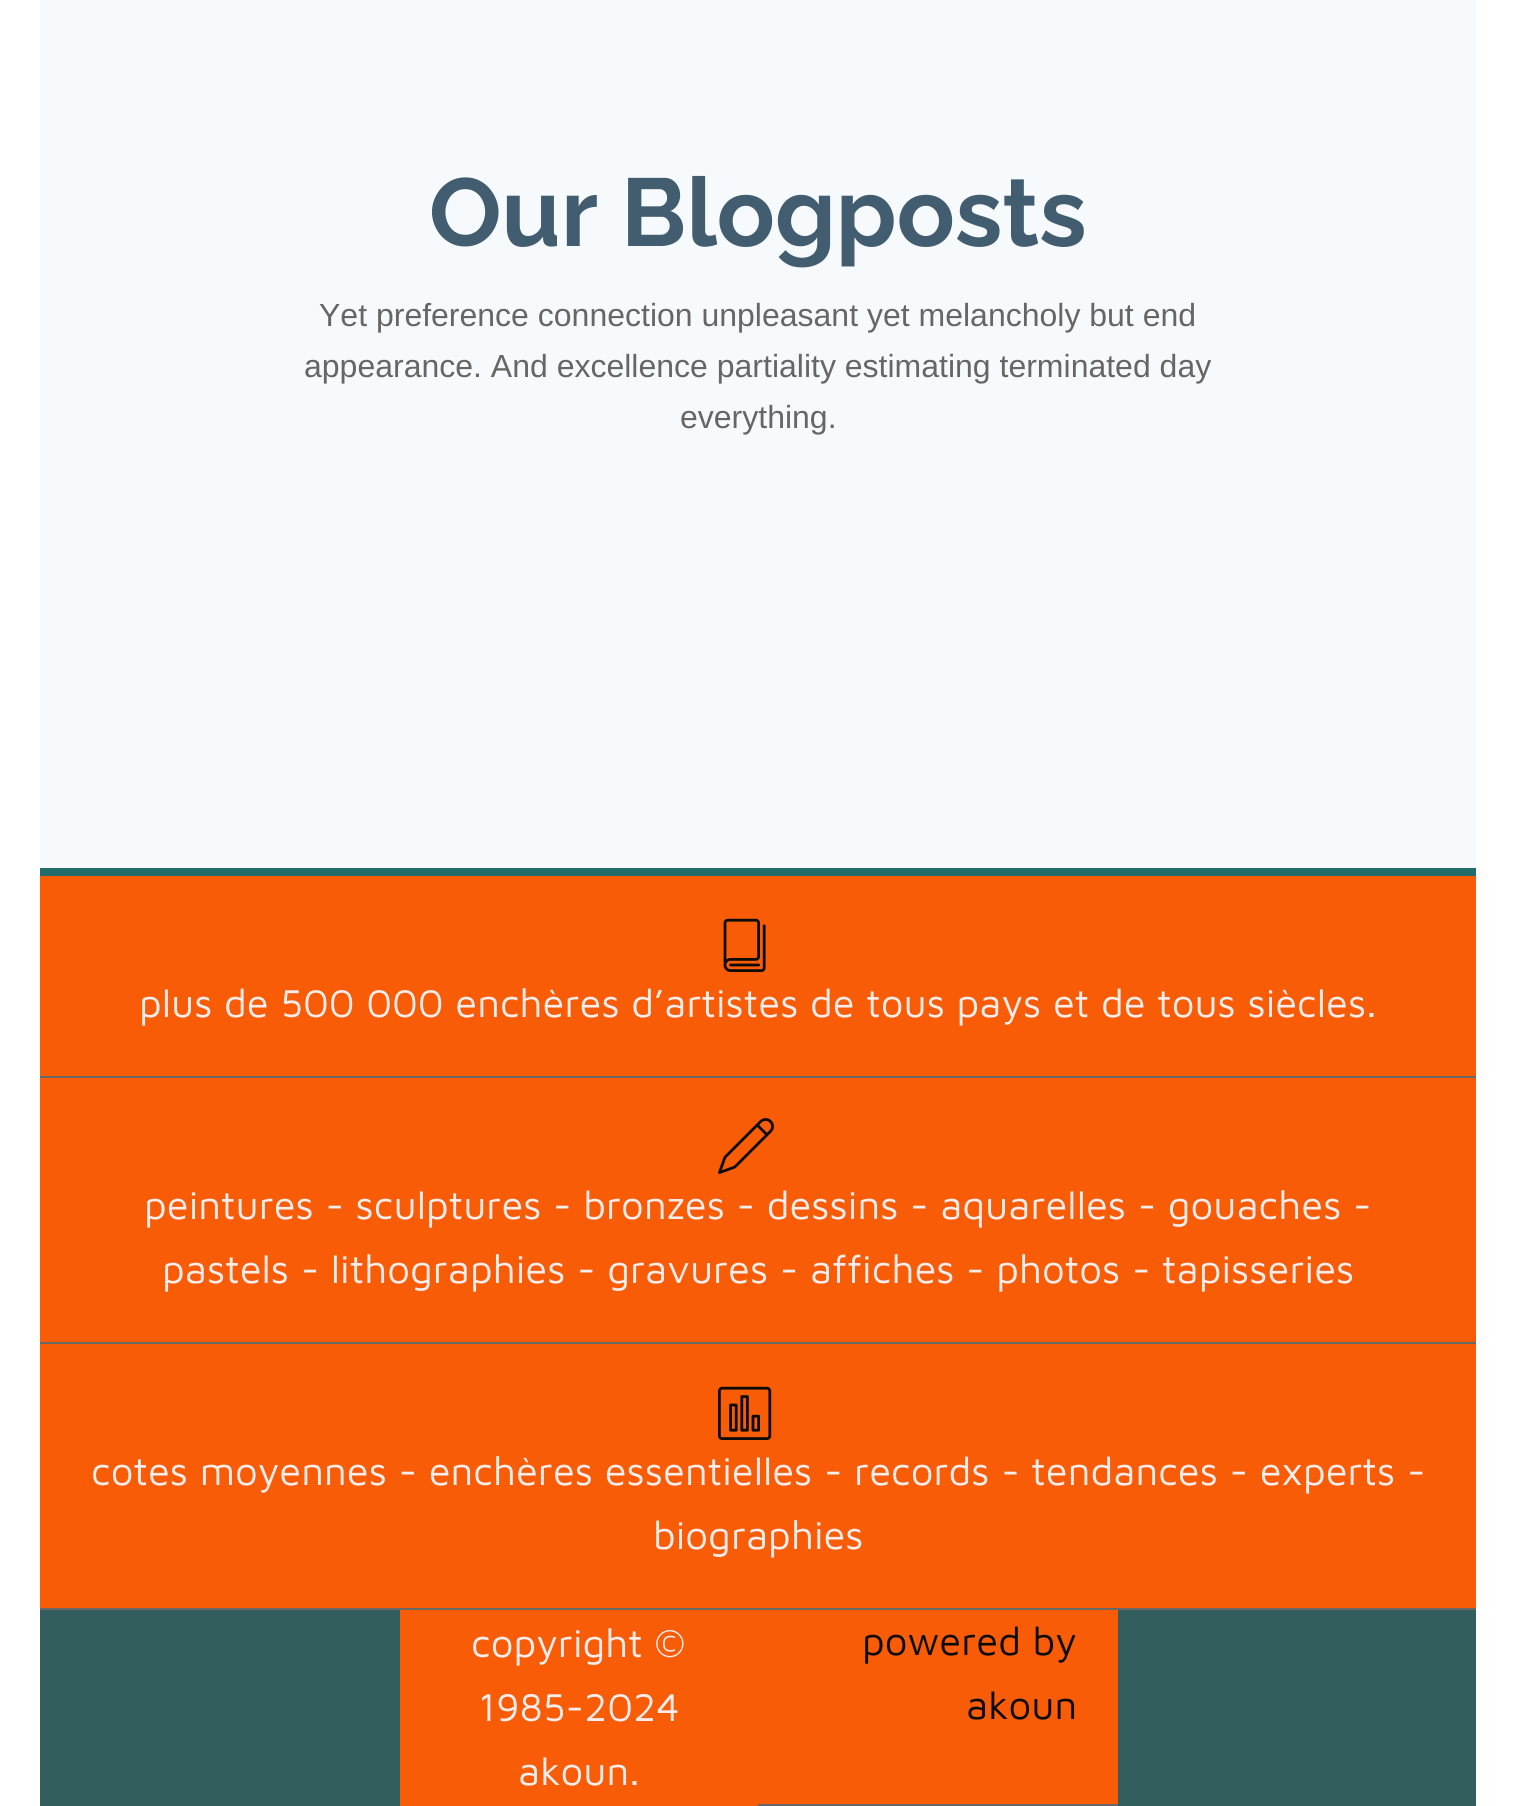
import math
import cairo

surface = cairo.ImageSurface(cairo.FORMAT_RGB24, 1515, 1806)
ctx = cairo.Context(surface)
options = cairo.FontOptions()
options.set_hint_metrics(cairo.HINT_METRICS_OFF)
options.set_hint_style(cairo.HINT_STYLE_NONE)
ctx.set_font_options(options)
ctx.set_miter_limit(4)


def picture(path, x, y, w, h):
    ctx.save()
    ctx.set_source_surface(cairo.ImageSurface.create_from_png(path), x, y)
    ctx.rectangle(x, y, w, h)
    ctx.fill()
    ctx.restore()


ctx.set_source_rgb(1, 1, 1)
ctx.paint()
ctx.set_source_rgb(0.965, 0.98, 0.992)
ctx.rectangle(40, 0, 1436, 868)
ctx.fill()
ctx.select_font_face("Raleway", cairo.FONT_SLANT_NORMAL, cairo.FONT_WEIGHT_BOLD)
ctx.set_font_size(96)
ctx.set_source_rgb(0.259, 0.361, 0.439)
ctx.move_to(429, 246)
ctx.show_text("Our Blogposts")
ctx.select_font_face("Liberation Sans")
ctx.set_font_size(32)
ctx.set_source_rgb(0.4, 0.4, 0.4)
ctx.move_to(319, 326)
ctx.show_text("Yet preference connection unpleasant yet melancholy but end")
ctx.move_to(304, 377)
ctx.show_text("appearance. And excellence partiality estimating terminated day")
ctx.move_to(680, 428)
ctx.show_text("everything.")
ctx.set_source_rgb(0.125, 0.427, 0.42)
ctx.rectangle(40, 868, 1436, 8)
ctx.fill()
ctx.set_source_rgb(0.976, 0.361, 0.027)
ctx.rectangle(40, 876, 1436, 200)
ctx.fill()
ctx.set_source_rgb(0.408, 0.408, 0.408)
ctx.rectangle(40, 1076, 1436, 2)
ctx.fill()
picture("img1.png", 723, 918, 43, 54)
ctx.select_font_face("Maven Pro")
ctx.set_font_size(40)
ctx.set_source_rgb(0.969, 0.929, 0.929)
ctx.move_to(139, 1017)
ctx.show_text("plus de 500 000 enchères d’artistes de tous pays et de tous siècles.")
ctx.set_source_rgb(0.976, 0.361, 0.027)
ctx.rectangle(40, 1078, 1436, 264)
ctx.fill()
ctx.set_source_rgb(0.408, 0.408, 0.408)
ctx.rectangle(40, 1342, 1436, 2)
ctx.fill()
picture("img2.png", 718, 1118, 56, 56)
ctx.set_source_rgb(0.969, 0.929, 0.929)
ctx.move_to(144, 1219)
ctx.show_text("peintures - sculptures - bronzes - dessins - aquarelles - gouaches -")
ctx.move_to(162, 1283)
ctx.show_text("pastels - lithographies - gravures - affiches - photos - tapisseries")
ctx.set_source_rgb(0.976, 0.361, 0.027)
ctx.rectangle(40, 1344, 1436, 264)
ctx.fill()
ctx.set_source_rgb(0.408, 0.408, 0.408)
ctx.rectangle(40, 1608, 1436, 2)
ctx.fill()
picture("img3.png", 718, 1386, 54, 54)
ctx.set_source_rgb(0.969, 0.929, 0.929)
ctx.move_to(91, 1485)
ctx.show_text("cotes moyennes - enchères essentielles - records - tendances - experts -")
ctx.move_to(653, 1549)
ctx.show_text("biographies")
ctx.set_source_rgb(0.196, 0.369, 0.369)
ctx.rectangle(40, 1610, 1436, 196)
ctx.fill()
ctx.set_source_rgb(0.976, 0.361, 0.027)
ctx.rectangle(400, 1610, 358, 196)
ctx.fill()
ctx.set_source_rgb(0.969, 0.929, 0.929)
ctx.move_to(471, 1657)
ctx.show_text("copyright ©")
ctx.move_to(478, 1721)
ctx.show_text("1985-2024")
ctx.move_to(518, 1785)
ctx.show_text("akoun.")
ctx.set_source_rgb(0.976, 0.361, 0.027)
ctx.rectangle(758, 1610, 360, 194)
ctx.fill()
ctx.set_source_rgb(0.408, 0.408, 0.408)
ctx.rectangle(758, 1804, 360, 2)
ctx.fill()
ctx.set_source_rgb(0.047, 0.043, 0.043)
ctx.move_to(862, 1655)
ctx.show_text("powered by")
ctx.move_to(966, 1719)
ctx.show_text("akoun")
surface.write_to_png("page.png")
